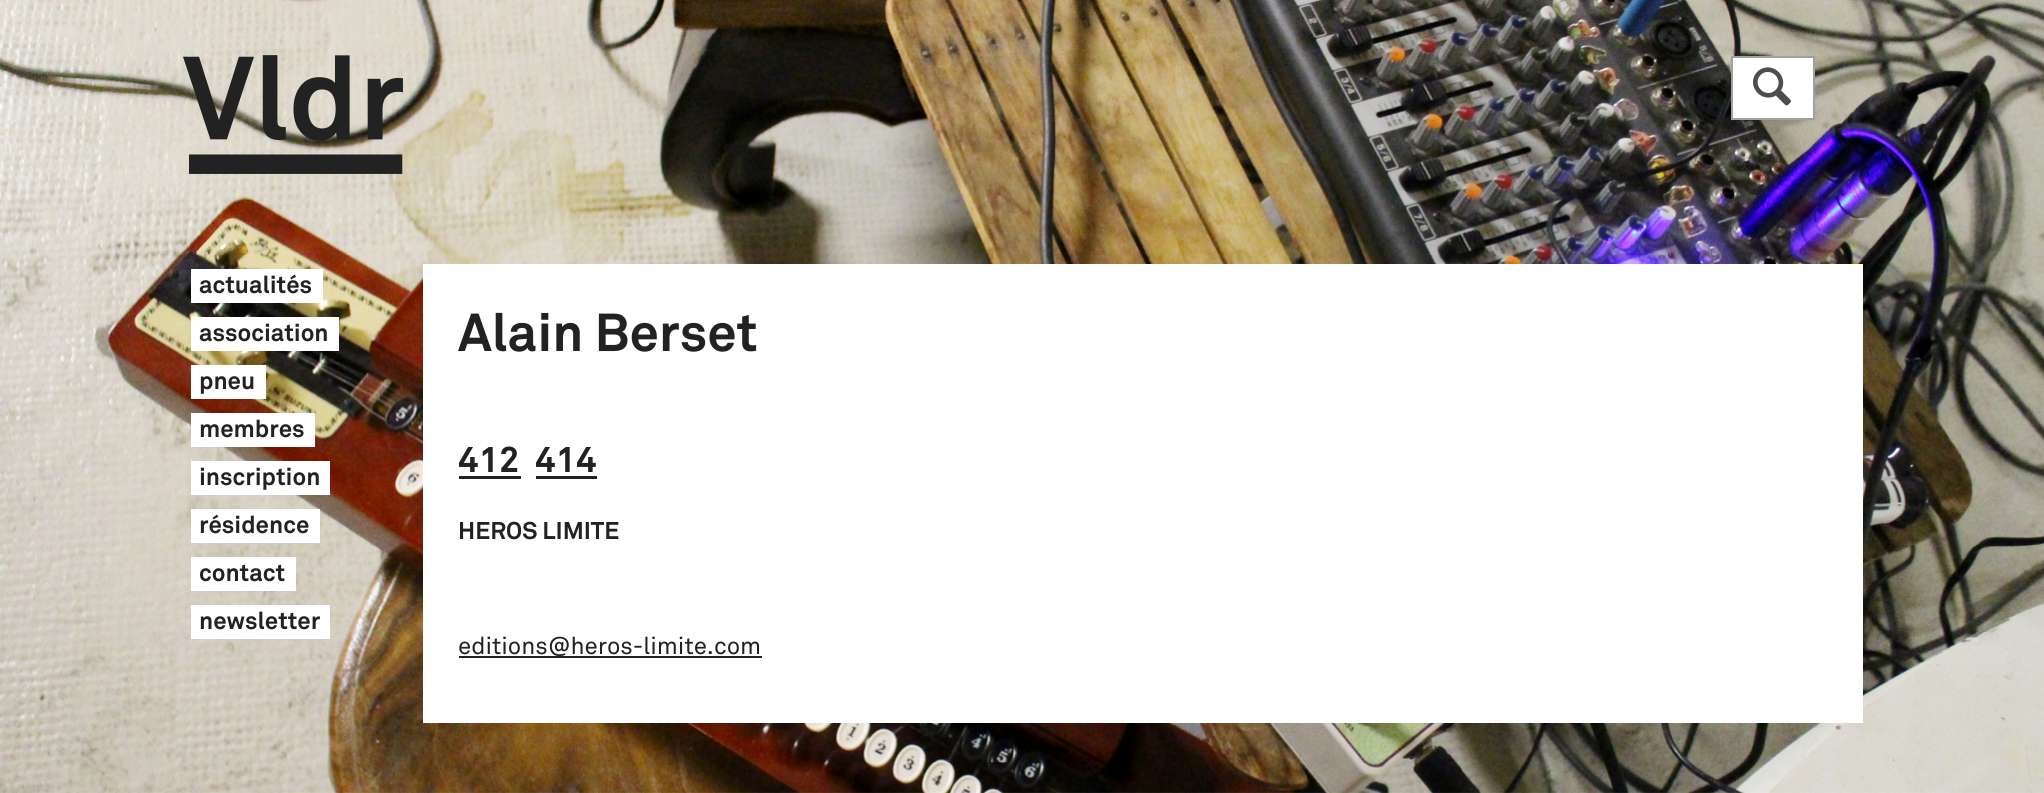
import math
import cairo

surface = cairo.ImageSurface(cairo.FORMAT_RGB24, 2044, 793)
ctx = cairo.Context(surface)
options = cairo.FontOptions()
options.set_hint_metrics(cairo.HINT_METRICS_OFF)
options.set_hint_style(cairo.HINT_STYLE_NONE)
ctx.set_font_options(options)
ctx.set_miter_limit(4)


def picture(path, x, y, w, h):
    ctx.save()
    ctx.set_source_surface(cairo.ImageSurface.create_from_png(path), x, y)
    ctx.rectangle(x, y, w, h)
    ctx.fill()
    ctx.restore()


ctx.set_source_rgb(1, 1, 1)
ctx.paint()
picture("img1.png", 0, 0, 2044, 793)
picture("img2.png", 183, 55, 220, 119)
ctx.set_source_rgb(1, 1, 1)
ctx.rectangle(1732, 57, 82, 62)
ctx.fill_preserve()
ctx.set_source_rgb(0.631, 0.631, 0.631)
ctx.stroke()
ctx.select_font_face("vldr")
ctx.set_font_size(38)
ctx.set_source_rgb(0.306, 0.302, 0.302)
ctx.move_to(1753, 103)
ctx.show_text("R")
ctx.set_source_rgb(1, 1, 1)
ctx.rectangle(191, 269, 132, 34)
ctx.fill()
ctx.select_font_face("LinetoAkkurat", cairo.FONT_SLANT_NORMAL, cairo.FONT_WEIGHT_BOLD)
ctx.set_font_size(24)
ctx.set_source_rgb(0.133, 0.133, 0.133)
ctx.move_to(199, 293)
ctx.show_text("actualités")
ctx.set_source_rgb(1, 1, 1)
ctx.rectangle(191, 317, 148, 34)
ctx.fill()
ctx.set_source_rgb(0.133, 0.133, 0.133)
ctx.move_to(199, 341)
ctx.show_text("association")
ctx.set_source_rgb(1, 1, 1)
ctx.rectangle(191, 365, 75, 34)
ctx.fill()
ctx.set_source_rgb(0.133, 0.133, 0.133)
ctx.move_to(199, 389)
ctx.show_text("pneu")
ctx.set_source_rgb(1, 1, 1)
ctx.rectangle(191, 413, 124, 34)
ctx.fill()
ctx.set_source_rgb(0.133, 0.133, 0.133)
ctx.move_to(199, 437)
ctx.show_text("membres")
ctx.set_source_rgb(1, 1, 1)
ctx.rectangle(191, 461, 139, 34)
ctx.fill()
ctx.set_source_rgb(0.133, 0.133, 0.133)
ctx.move_to(199, 485)
ctx.show_text("inscription")
ctx.set_source_rgb(1, 1, 1)
ctx.rectangle(191, 509, 129, 34)
ctx.fill()
ctx.set_source_rgb(0.133, 0.133, 0.133)
ctx.move_to(199, 533)
ctx.show_text("résidence")
ctx.set_source_rgb(1, 1, 1)
ctx.rectangle(191, 557, 105, 34)
ctx.fill()
ctx.set_source_rgb(0.133, 0.133, 0.133)
ctx.move_to(199, 581)
ctx.show_text("contact")
ctx.set_source_rgb(1, 1, 1)
ctx.rectangle(191, 605, 139, 34)
ctx.fill()
ctx.set_source_rgb(0.133, 0.133, 0.133)
ctx.move_to(199, 629)
ctx.show_text("newsletter")
ctx.set_source_rgb(1, 1, 1)
ctx.rectangle(423, 264, 1440, 459)
ctx.fill()
ctx.set_font_size(52.75)
ctx.set_source_rgb(0.133, 0.133, 0.133)
ctx.move_to(458, 351)
ctx.show_text("Alain Berset")
ctx.set_font_size(36)
ctx.move_to(458, 472)
ctx.show_text("412")
ctx.rectangle(459, 476, 62, 3)
ctx.fill()
ctx.move_to(535, 472)
ctx.show_text("414")
ctx.rectangle(536, 476, 61, 3)
ctx.fill()
ctx.set_font_size(24)
ctx.move_to(458, 539)
ctx.show_text("HEROS LIMITE")
ctx.rectangle(459, 656, 303, 2)
ctx.fill()
ctx.select_font_face("LinetoAkkurat")
ctx.move_to(458, 654)
ctx.show_text("editions@heros-limite.com")
surface.write_to_png("page.png")
